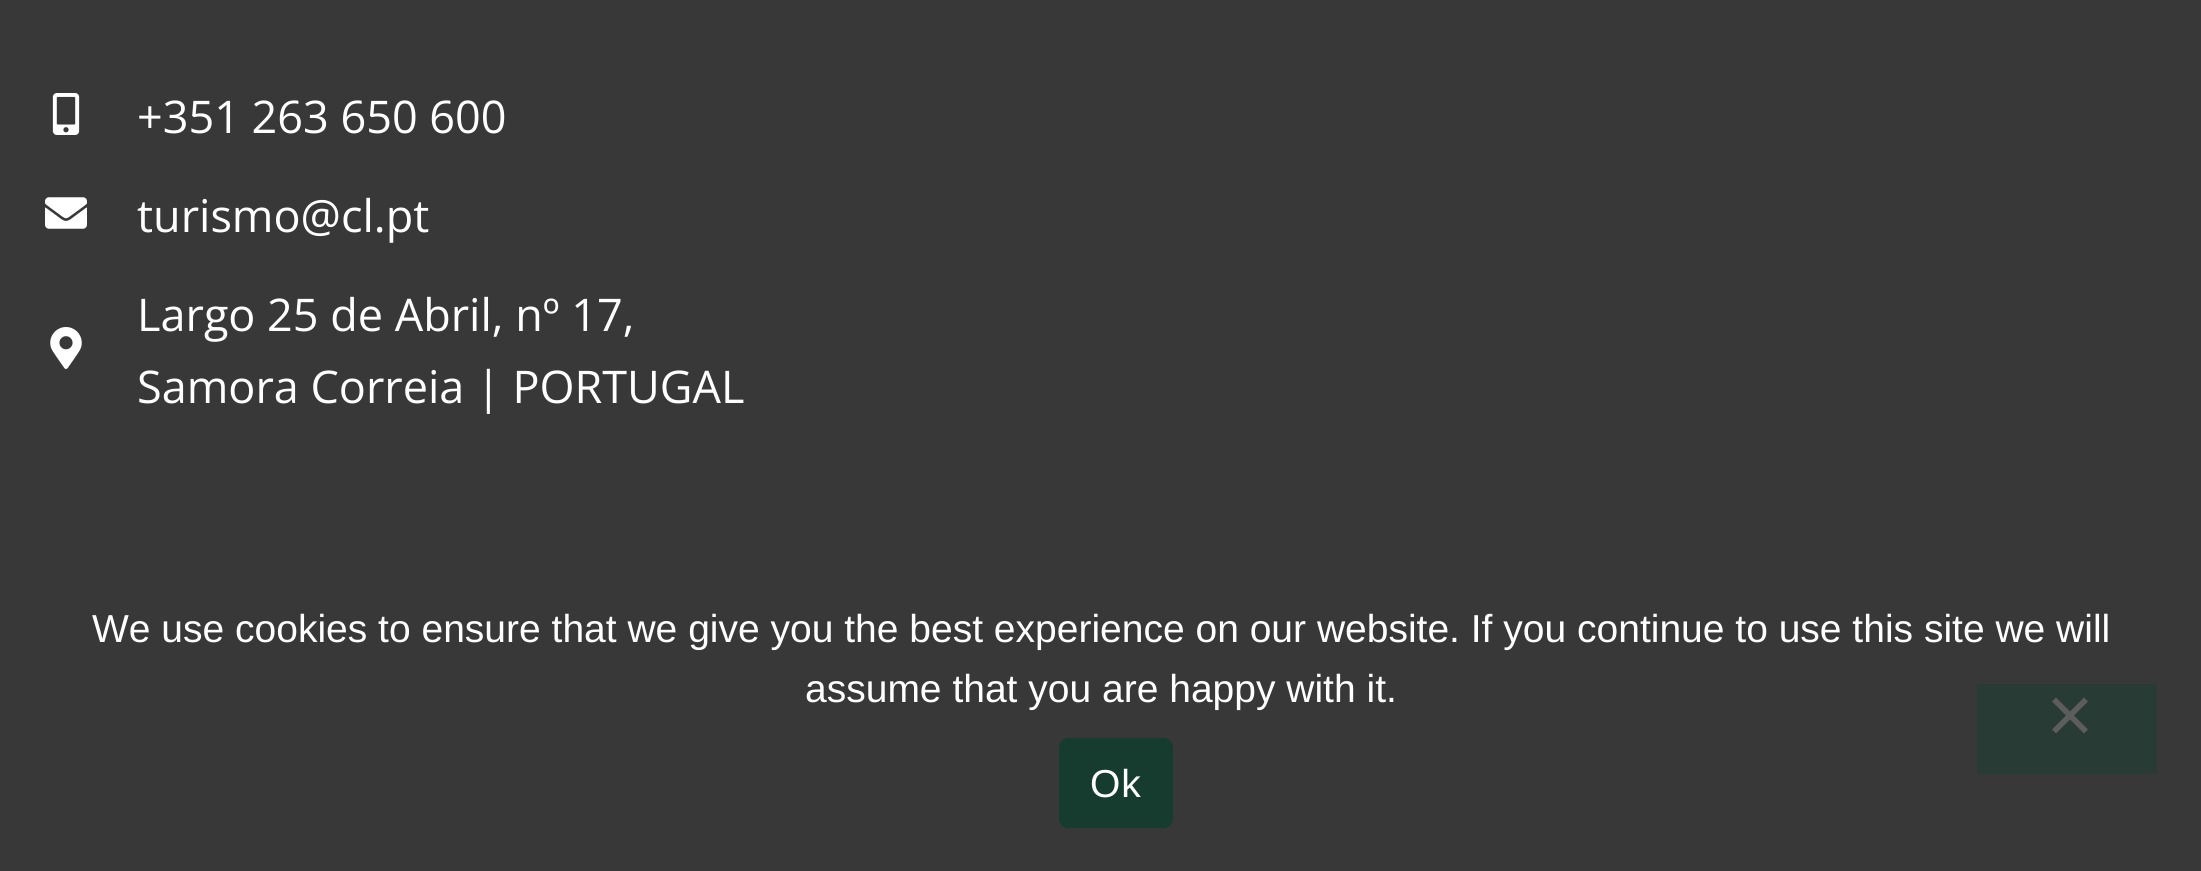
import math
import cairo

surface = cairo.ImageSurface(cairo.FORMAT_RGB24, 2201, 871)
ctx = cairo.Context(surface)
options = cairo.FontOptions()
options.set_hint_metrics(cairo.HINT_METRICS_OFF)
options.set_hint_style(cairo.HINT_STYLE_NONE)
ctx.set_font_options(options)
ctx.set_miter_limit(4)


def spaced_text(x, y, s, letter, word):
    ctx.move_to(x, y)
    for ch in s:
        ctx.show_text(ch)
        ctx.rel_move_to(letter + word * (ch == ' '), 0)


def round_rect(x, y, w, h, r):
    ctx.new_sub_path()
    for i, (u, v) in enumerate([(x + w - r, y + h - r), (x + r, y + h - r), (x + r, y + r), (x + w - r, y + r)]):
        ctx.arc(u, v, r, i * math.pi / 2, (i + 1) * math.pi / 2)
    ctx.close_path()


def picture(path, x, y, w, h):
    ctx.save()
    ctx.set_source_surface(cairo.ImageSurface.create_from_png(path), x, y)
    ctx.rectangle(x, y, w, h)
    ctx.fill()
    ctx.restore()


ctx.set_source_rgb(0.22, 0.22, 0.22)
ctx.paint()
picture("img1.png", 52, 93, 28, 42)
ctx.select_font_face("Open Sans")
ctx.set_font_size(45)
ctx.set_source_rgb(1, 1, 1)
ctx.move_to(137, 133)
ctx.show_text("+351 263 650 600")
picture("img2.png", 45, 197, 42, 32)
ctx.move_to(137, 232)
ctx.show_text("turismo@cl.pt")
picture("img3.png", 50, 327, 32, 42)
ctx.move_to(137, 331)
ctx.show_text("Largo 25 de Abril, nº 17,")
ctx.move_to(137, 403)
ctx.show_text("Samora Correia | PORTUGAL")
ctx.select_font_face("Liberation Sans")
ctx.set_font_size(39)
ctx.move_to(92, 642)
ctx.show_text("We use cookies to ensure that we give you the best experience on our website. If you continue to use this site we will")
ctx.move_to(805, 702)
ctx.show_text("assume that you are happy with it.")
ctx.set_source_rgb(0.157, 0.231, 0.208)
ctx.rectangle(1977, 684, 180, 90)
ctx.fill()
ctx.set_source_rgb(0.365, 0.365, 0.365)
ctx.new_path()
ctx.move_to(2084, 697.5)
ctx.line_to(2088, 701.5)
ctx.line_to(2056, 733.5)
ctx.line_to(2052, 729.5)
ctx.close_path()
ctx.fill()
ctx.new_path()
ctx.move_to(2052, 701.5)
ctx.line_to(2056, 697.5)
ctx.line_to(2088, 729.5)
ctx.line_to(2084, 733.5)
ctx.close_path()
ctx.fill()
ctx.set_source_rgb(0.086, 0.235, 0.184)
round_rect(1059, 738, 114, 90, 9)
ctx.fill()
ctx.set_source_rgb(1, 1, 1)
spaced_text(1090, 797, "Ok", 1, 0)
surface.write_to_png("page.png")
